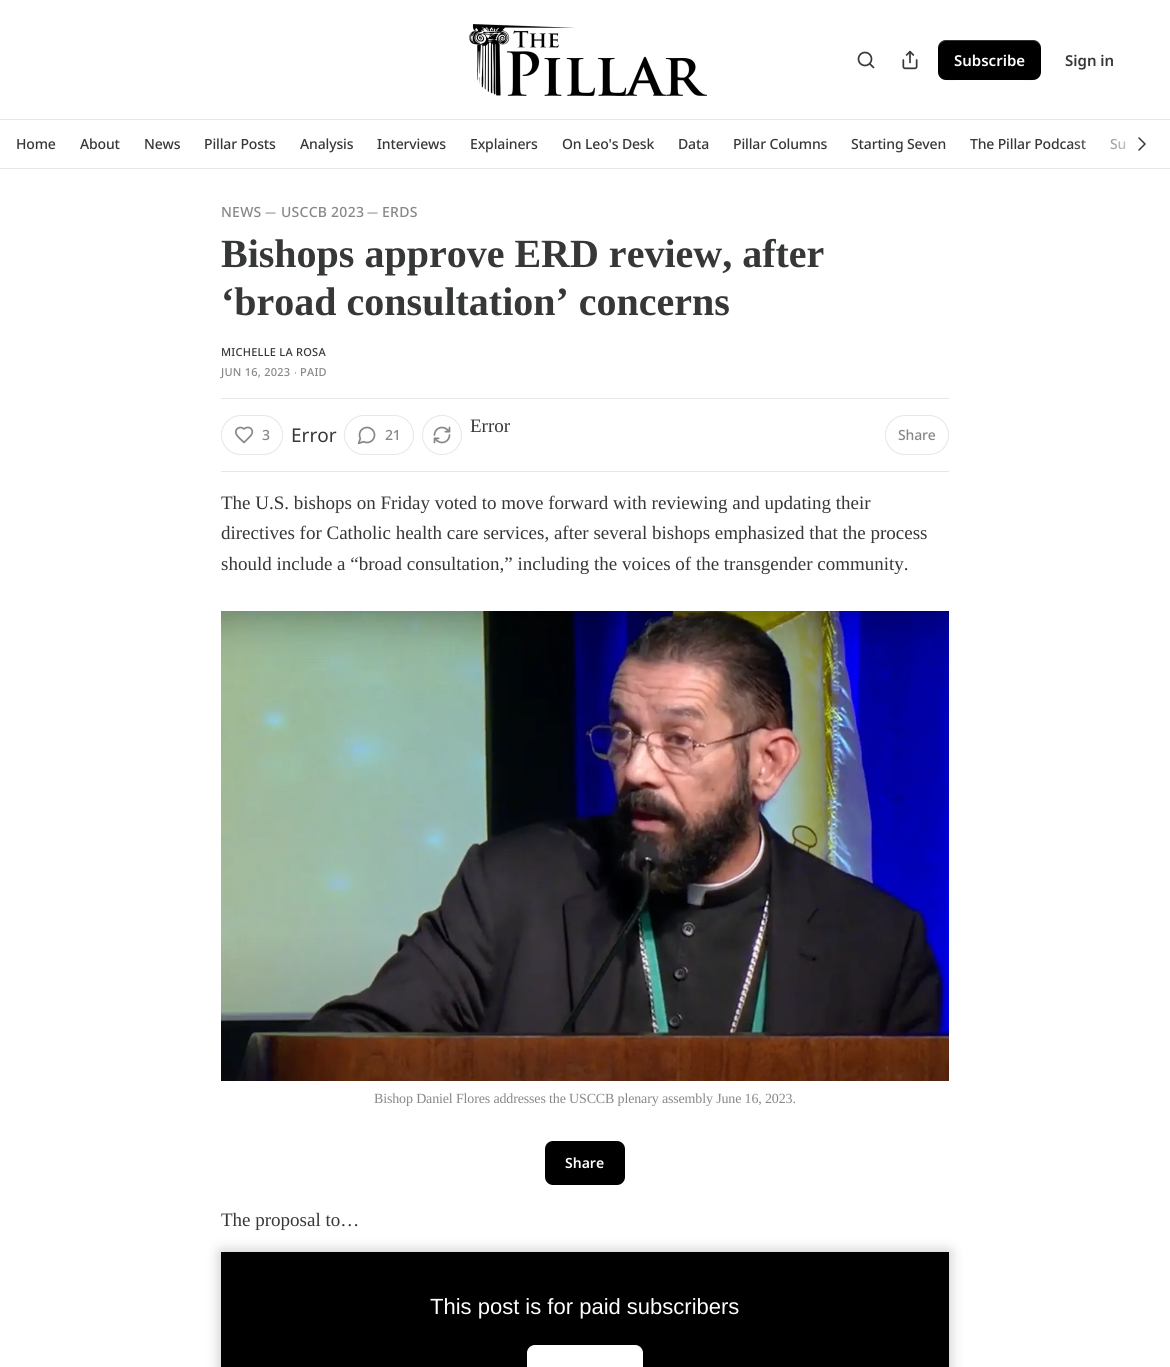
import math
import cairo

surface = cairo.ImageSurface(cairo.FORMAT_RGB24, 1170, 1367)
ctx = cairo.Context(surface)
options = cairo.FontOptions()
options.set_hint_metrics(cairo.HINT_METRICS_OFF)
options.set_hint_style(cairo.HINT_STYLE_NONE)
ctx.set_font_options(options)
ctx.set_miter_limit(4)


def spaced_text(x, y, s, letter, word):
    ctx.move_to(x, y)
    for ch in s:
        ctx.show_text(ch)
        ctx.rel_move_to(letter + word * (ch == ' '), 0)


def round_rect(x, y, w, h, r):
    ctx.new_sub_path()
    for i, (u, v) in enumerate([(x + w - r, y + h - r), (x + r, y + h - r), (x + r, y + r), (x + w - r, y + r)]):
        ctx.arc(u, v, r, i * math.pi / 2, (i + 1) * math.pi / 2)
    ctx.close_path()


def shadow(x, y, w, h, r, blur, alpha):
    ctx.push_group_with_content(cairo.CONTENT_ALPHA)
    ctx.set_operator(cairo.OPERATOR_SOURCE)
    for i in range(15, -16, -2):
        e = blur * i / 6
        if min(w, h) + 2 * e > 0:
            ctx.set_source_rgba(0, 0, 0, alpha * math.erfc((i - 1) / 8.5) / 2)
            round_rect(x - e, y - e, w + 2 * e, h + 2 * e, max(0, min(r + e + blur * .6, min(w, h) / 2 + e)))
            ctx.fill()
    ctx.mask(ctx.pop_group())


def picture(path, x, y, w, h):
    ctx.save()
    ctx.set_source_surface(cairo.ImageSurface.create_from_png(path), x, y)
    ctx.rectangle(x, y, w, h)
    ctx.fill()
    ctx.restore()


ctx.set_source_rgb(1, 1, 1)
ctx.paint()
picture("img1.png", 469, 24, 238, 72)
ctx.arc(865, 59, 6.5, 0, 2 * math.pi)
ctx.set_source_rgb(0.212, 0.216, 0.216)
ctx.set_line_width(1.7)
ctx.stroke()
ctx.new_path()
ctx.move_to(873.5, 67.5)
ctx.line_to(870, 64)
ctx.set_line_cap(cairo.LINE_CAP_ROUND)
ctx.set_line_join(cairo.LINE_JOIN_ROUND)
ctx.stroke()
picture("img2.png", 902, 50, 16, 20)
ctx.set_source_rgb(0, 0, 0)
round_rect(938, 40, 103, 40, 8)
ctx.fill()
ctx.set_source_rgba(0, 0, 0, 0.1)
ctx.new_path()
ctx.move_to(938, 71)
ctx.curve_to(938, 83, 952, 80, 960, 80)
ctx.line_to(1018, 80)
ctx.curve_to(1027, 80, 1041, 83, 1041, 71)
ctx.curve_to(1041, 75, 1037, 79, 1033, 79)
ctx.line_to(946, 79)
ctx.curve_to(942, 79, 938, 75, 938, 71)
ctx.close_path()
ctx.fill()
ctx.set_source_rgba(1, 1, 1, 0.2)
ctx.new_path()
ctx.move_to(946, 41)
ctx.line_to(1033, 41)
ctx.curve_to(1037, 41, 1041, 45, 1041, 49)
ctx.curve_to(1041, 37, 1027, 40, 1018, 40)
ctx.line_to(960, 40)
ctx.curve_to(952, 40, 938, 37, 938, 49)
ctx.curve_to(938, 45, 942, 41, 946, 41)
ctx.close_path()
ctx.fill()
ctx.select_font_face("Noto Sans SemiBold")
ctx.set_font_size(15)
ctx.set_source_rgb(1, 1, 1)
ctx.move_to(954, 66)
ctx.show_text("Subscribe")
ctx.set_source_rgb(0.212, 0.216, 0.216)
ctx.move_to(1065, 66)
ctx.show_text("Sign in")
ctx.set_source_rgb(0.902, 0.902, 0.902)
ctx.rectangle(0, 119, 1170, 1)
ctx.fill()
ctx.rectangle(0, 168, 1170, 1)
ctx.fill()
ctx.select_font_face("Noto Sans Medium")
ctx.set_font_size(14)
ctx.set_source_rgb(0.212, 0.216, 0.216)
spaced_text(970, 149, "The Pillar Podcast", -0.15, 0)
spaced_text(1110, 149, "Su", -0.15, 0)
gradient = cairo.LinearGradient(1170, 144, 1070, 144)
gradient.add_color_stop_rgba(0.2, 1, 1, 1, 1)
gradient.add_color_stop_rgba(1, 1, 1, 1, 0)
ctx.set_source(gradient)
ctx.rectangle(1072, 138, 54, 12)
ctx.fill()
ctx.new_path()
ctx.move_to(1139, 150)
ctx.line_to(1145, 144)
ctx.line_to(1139, 138)
ctx.set_source_rgb(0.212, 0.216, 0.216)
ctx.set_line_width(1.5)
ctx.stroke()
spaced_text(16, 149, "Home", -0.15, 0)
spaced_text(80, 149, "About", -0.15, 0)
spaced_text(144, 149, "News", -0.15, 0)
spaced_text(204, 149, "Pillar Posts", -0.15, 0)
spaced_text(300, 149, "Analysis", -0.15, 0)
spaced_text(377, 149, "Interviews", -0.15, 0)
spaced_text(470, 149, "Explainers", -0.15, 0)
spaced_text(562, 149, "On Leo's Desk", -0.15, 0)
spaced_text(678, 149, "Data", -0.15, 0)
spaced_text(733, 149, "Pillar Columns", -0.15, 0)
spaced_text(851, 149, "Starting Seven", -0.15, 0)
ctx.set_source_rgb(0.525, 0.529, 0.529)
spaced_text(221, 217, "NEWS", 0.25, 0)
ctx.set_font_size(11)
spaced_text(265, 216, "—", 0.25, 0)
ctx.set_font_size(14)
spaced_text(281, 217, "USCCB 2023", 0.25, 0)
ctx.set_font_size(11)
spaced_text(367, 216, "—", 0.25, 0)
ctx.set_font_size(14)
spaced_text(382, 217, "ERDS", 0.25, 0)
ctx.select_font_face("Liberation Serif", cairo.FONT_SLANT_NORMAL, cairo.FONT_WEIGHT_BOLD)
ctx.set_font_size(40)
ctx.set_source_rgb(0.212, 0.216, 0.216)
ctx.move_to(221, 267)
ctx.show_text("Bishops approve ERD review, after")
ctx.move_to(221, 315)
ctx.show_text("‘broad consultation’ concerns")
ctx.select_font_face("Noto Sans Medium")
ctx.set_font_size(11)
spaced_text(221, 356, "MICHELLE LA ROSA", 0.25, 0)
ctx.set_source_rgb(0.525, 0.529, 0.529)
spaced_text(221, 376, "JUN 16, 2023", 0.25, 0)
ctx.select_font_face("Liberation Sans")
spaced_text(294, 376, "∙", 0.25, 0)
ctx.select_font_face("Noto Sans Medium")
spaced_text(300, 376, "PAID", 0.25, 0)
ctx.set_source_rgb(0.902, 0.902, 0.902)
ctx.rectangle(221, 398, 728, 1)
ctx.fill()
ctx.rectangle(221, 471, 728, 1)
ctx.fill()
ctx.arc(442, 435, 19.5, 0, 2 * math.pi)
ctx.set_line_width(1)
ctx.set_line_cap(cairo.LINE_CAP_BUTT)
ctx.set_line_join(cairo.LINE_JOIN_MITER)
ctx.stroke()
picture("img3.png", 433, 426, 18, 18)
ctx.select_font_face("Liberation Serif")
ctx.set_font_size(19)
ctx.set_source_rgb(0.212, 0.216, 0.216)
ctx.move_to(470, 432)
ctx.show_text("Error")
round_rect(221.5, 415.5, 61, 39, 19.5)
ctx.set_source_rgb(0.902, 0.902, 0.902)
ctx.stroke()
ctx.new_path()
ctx.move_to(250, 436.5)
ctx.curve_to(256, 430.5, 249, 424.5, 244, 429)
ctx.curve_to(240.5, 425.5, 234.5, 428.5, 236, 433.5)
ctx.curve_to(237, 436.5, 242, 440.5, 244, 442.5)
ctx.close_path()
ctx.set_source_rgb(0.525, 0.529, 0.529)
ctx.set_line_width(1.7)
ctx.set_line_cap(cairo.LINE_CAP_ROUND)
ctx.set_line_join(cairo.LINE_JOIN_ROUND)
ctx.stroke()
ctx.select_font_face("Noto Sans Medium")
ctx.set_font_size(14)
spaced_text(262, 440, "3", -0.15, 0)
ctx.select_font_face("Noto Sans")
ctx.set_font_size(19)
ctx.set_source_rgb(0.212, 0.216, 0.216)
ctx.move_to(291, 442)
ctx.show_text("Error")
round_rect(344.5, 415.5, 69, 39, 19.5)
ctx.set_source_rgb(0.902, 0.902, 0.902)
ctx.set_line_width(1)
ctx.set_line_cap(cairo.LINE_CAP_BUTT)
ctx.set_line_join(cairo.LINE_JOIN_MITER)
ctx.stroke()
picture("img4.png", 357, 426, 19, 19)
ctx.select_font_face("Noto Sans Medium")
ctx.set_font_size(14)
ctx.set_source_rgb(0.525, 0.529, 0.529)
spaced_text(385, 440, "21", -0.15, 0)
round_rect(885.5, 415.5, 63, 39, 19.5)
ctx.set_source_rgb(0.902, 0.902, 0.902)
ctx.stroke()
ctx.set_source_rgb(0.525, 0.529, 0.529)
spaced_text(898, 440, "Share", -0.15, 0)
ctx.select_font_face("Liberation Serif")
ctx.set_font_size(19)
ctx.set_source_rgb(0.212, 0.216, 0.216)
ctx.move_to(221, 509)
ctx.show_text("The U.S. bishops on Friday voted to move forward with reviewing and updating their")
ctx.move_to(221, 539)
ctx.show_text("directives for Catholic health care services, after several bishops emphasized that the process")
ctx.move_to(221, 570)
ctx.show_text("should include a “broad consultation,” including the voices of the transgender community.")
picture("img5.png", 221, 611, 728, 470)
ctx.set_font_size(14)
ctx.set_source_rgb(0.525, 0.529, 0.529)
spaced_text(374, 1103, "Bishop Daniel Flores addresses the USCCB plenary assembly June 16, 2023.", -0.15, 0)
ctx.set_source_rgb(0, 0, 0)
round_rect(545, 1141, 80, 44, 8)
ctx.fill()
ctx.select_font_face("Noto Sans SemiBold")
ctx.set_source_rgb(1, 1, 1)
ctx.move_to(565, 1168)
ctx.show_text("Share")
ctx.select_font_face("Liberation Serif")
ctx.set_font_size(19)
ctx.set_source_rgb(0.212, 0.216, 0.216)
ctx.move_to(221, 1226)
ctx.show_text("The proposal to…")
ctx.set_source_rgb(0, 0, 0)
ctx.rectangle(221, 1252, 728, 115)
ctx.fill()
ctx.set_source_rgb(1, 1, 1)
round_rect(527.5, 1345.5, 115, 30, 7.5)
ctx.fill_preserve()
ctx.stroke()
ctx.save()
ctx.set_fill_rule(cairo.FILL_RULE_EVEN_ODD)
ctx.new_path()
ctx.move_to(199, 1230)
ctx.line_to(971, 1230)
ctx.line_to(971, 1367)
ctx.line_to(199, 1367)
ctx.close_path()
ctx.move_to(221, 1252)
ctx.line_to(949, 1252)
ctx.line_to(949, 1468)
ctx.line_to(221, 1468)
ctx.close_path()
ctx.clip()
ctx.set_source_rgb(0, 0, 0)
shadow(221, 1252, 728, 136, 0, 7, 0.25)
ctx.restore()
ctx.select_font_face("Liberation Sans")
ctx.set_font_size(22)
ctx.move_to(430, 1314)
ctx.show_text("This post is for paid subscribers")
surface.write_to_png("page.png")
